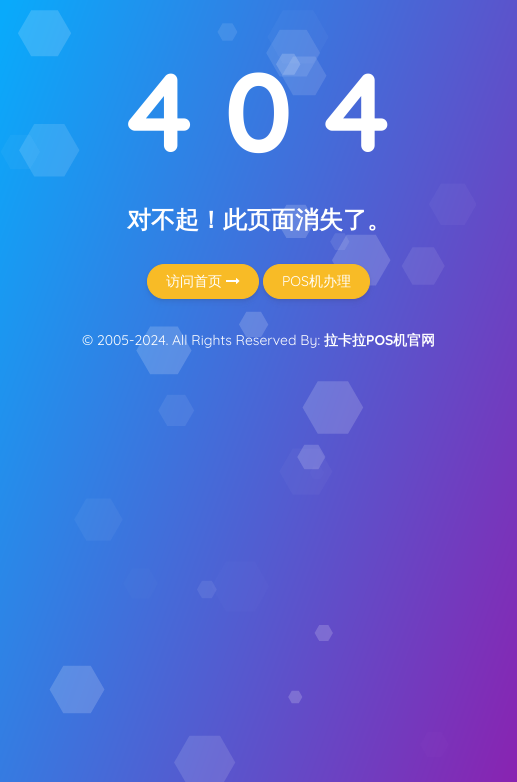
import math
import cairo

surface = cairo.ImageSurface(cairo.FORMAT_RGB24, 517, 782)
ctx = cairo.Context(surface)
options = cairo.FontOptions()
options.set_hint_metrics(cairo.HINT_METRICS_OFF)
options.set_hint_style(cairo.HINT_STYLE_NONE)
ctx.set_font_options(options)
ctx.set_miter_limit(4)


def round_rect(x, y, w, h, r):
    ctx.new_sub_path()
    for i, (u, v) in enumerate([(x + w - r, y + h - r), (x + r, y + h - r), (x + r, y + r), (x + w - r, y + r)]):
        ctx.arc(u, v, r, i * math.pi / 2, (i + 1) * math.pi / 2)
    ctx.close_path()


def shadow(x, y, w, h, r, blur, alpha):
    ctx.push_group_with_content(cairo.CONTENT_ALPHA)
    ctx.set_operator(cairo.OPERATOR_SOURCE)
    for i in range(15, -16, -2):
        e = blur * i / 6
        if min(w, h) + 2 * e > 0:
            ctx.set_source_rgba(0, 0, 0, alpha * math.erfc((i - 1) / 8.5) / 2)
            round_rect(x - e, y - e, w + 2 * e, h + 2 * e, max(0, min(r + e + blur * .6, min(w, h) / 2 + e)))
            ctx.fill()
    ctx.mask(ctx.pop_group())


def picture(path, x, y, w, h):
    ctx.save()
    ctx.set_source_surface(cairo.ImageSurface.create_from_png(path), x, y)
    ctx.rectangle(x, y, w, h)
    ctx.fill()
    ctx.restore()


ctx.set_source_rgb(1, 1, 1)
ctx.paint()
gradient = cairo.LinearGradient(-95, 262, 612, 520)
gradient.add_color_stop_rgba(0.01, 0.035, 0.667, 0.984, 1)
gradient.add_color_stop_rgba(1, 0.537, 0.137, 0.694, 1)
ctx.set_source(gradient)
ctx.rectangle(0, 0, 517, 782)
ctx.fill()
picture("img1.png", 1, 10, 475, 772)
ctx.select_font_face("Quicksand", cairo.FONT_SLANT_NORMAL, cairo.FONT_WEIGHT_BOLD)
ctx.set_font_size(112)
ctx.set_source_rgb(1, 1, 1)
ctx.move_to(127, 152)
ctx.show_text("4 0 4")
ctx.select_font_face("WenQuanYi Zen Hei", cairo.FONT_SLANT_NORMAL, cairo.FONT_WEIGHT_BOLD)
ctx.set_font_size(24)
ctx.move_to(127, 228)
ctx.show_text("对不起！此页面消失了。")
ctx.set_source_rgb(0.02, 0.02, 0.02)
shadow(147, 265, 112, 35, 17.5, 1.5, 0.08)
ctx.set_source_rgb(0.212, 0.212, 0.376)
shadow(147, 268, 112, 35, 17.5, 3, 0.11)
ctx.set_source_rgb(0.969, 0.733, 0.149)
round_rect(147.5, 264.5, 111, 34, 17)
ctx.fill_preserve()
ctx.set_line_width(1)
ctx.stroke()
ctx.select_font_face("WenQuanYi Zen Hei Medium")
ctx.set_font_size(14)
ctx.set_source_rgb(1, 1, 1)
ctx.move_to(166, 286)
ctx.show_text("访问首页")
picture("img2.png", 226, 278, 14, 6)
ctx.set_source_rgb(0.02, 0.02, 0.02)
shadow(263, 265, 107, 35, 17.5, 1.5, 0.08)
ctx.set_source_rgb(0.212, 0.212, 0.376)
shadow(263, 268, 107, 35, 17.5, 3, 0.11)
ctx.set_source_rgb(0.969, 0.733, 0.149)
round_rect(263.5, 264.5, 106, 34, 17)
ctx.fill_preserve()
ctx.stroke()
ctx.select_font_face("Quicksand")
ctx.set_source_rgb(1, 1, 1)
ctx.move_to(282, 286)
ctx.show_text("POS")
ctx.select_font_face("WenQuanYi Zen Hei Medium")
ctx.move_to(309, 286)
ctx.show_text("机办理")
ctx.select_font_face("Quicksand")
ctx.move_to(82, 345)
ctx.show_text("© 2005-2024. All Rights Reserved By:")
ctx.select_font_face("WenQuanYi Zen Hei", cairo.FONT_SLANT_NORMAL, cairo.FONT_WEIGHT_BOLD)
ctx.move_to(324, 345)
ctx.show_text("拉卡拉")
ctx.select_font_face("Quicksand", cairo.FONT_SLANT_NORMAL, cairo.FONT_WEIGHT_BOLD)
ctx.move_to(366, 345)
ctx.show_text("POS")
ctx.select_font_face("WenQuanYi Zen Hei", cairo.FONT_SLANT_NORMAL, cairo.FONT_WEIGHT_BOLD)
ctx.move_to(393, 345)
ctx.show_text("机官网")
surface.write_to_png("page.png")
